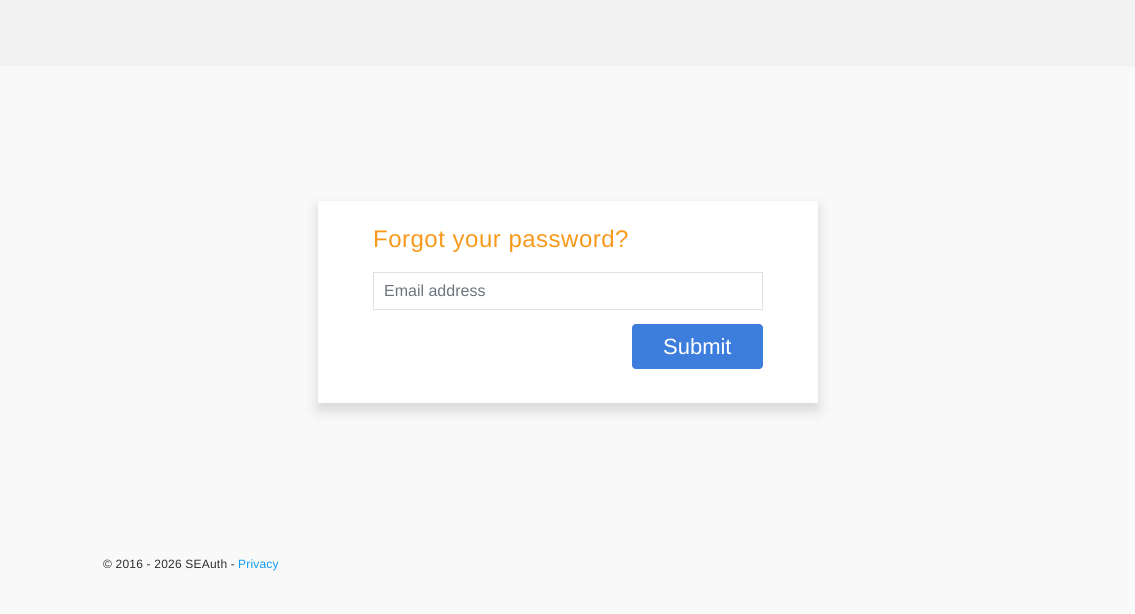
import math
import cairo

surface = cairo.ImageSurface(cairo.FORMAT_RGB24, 1135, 614)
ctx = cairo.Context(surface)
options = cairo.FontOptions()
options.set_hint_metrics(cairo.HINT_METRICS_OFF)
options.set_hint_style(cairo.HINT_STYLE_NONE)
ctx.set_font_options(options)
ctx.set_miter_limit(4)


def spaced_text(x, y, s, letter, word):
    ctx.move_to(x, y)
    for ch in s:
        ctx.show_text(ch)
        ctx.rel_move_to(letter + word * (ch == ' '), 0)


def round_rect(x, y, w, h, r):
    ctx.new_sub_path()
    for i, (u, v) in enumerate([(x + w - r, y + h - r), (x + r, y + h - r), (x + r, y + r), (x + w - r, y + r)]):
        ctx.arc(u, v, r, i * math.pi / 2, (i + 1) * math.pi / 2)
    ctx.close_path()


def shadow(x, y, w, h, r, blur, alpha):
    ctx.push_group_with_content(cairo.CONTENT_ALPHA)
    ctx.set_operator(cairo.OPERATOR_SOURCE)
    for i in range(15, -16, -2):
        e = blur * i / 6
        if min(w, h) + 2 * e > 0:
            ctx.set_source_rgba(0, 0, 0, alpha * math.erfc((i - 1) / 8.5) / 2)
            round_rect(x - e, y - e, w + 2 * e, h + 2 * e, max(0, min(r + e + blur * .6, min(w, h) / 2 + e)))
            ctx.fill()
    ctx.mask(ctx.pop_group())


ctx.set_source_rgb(0.976, 0.976, 0.976)
ctx.paint()
ctx.set_source_rgb(0.937, 0.937, 0.937)
ctx.rectangle(0, 65, 1135, 1)
ctx.fill()
ctx.set_source_rgb(0.949, 0.949, 0.949)
ctx.rectangle(0, 0, 1135, 65)
ctx.fill()
ctx.set_source_rgb(0, 0, 0)
shadow(318, 208, 500, 202, 0, 7, 0.15)
ctx.set_source_rgb(1, 1, 1)
ctx.rectangle(318, 201, 500, 202)
ctx.fill()
ctx.select_font_face("Liberation Sans")
ctx.set_font_size(24)
ctx.set_source_rgb(0.973, 0.6, 0.11)
spaced_text(373, 247, "Forgot your password?", 0.5, 0)
ctx.rectangle(373.5, 272.5, 389, 37)
ctx.set_source_rgb(0.871, 0.886, 0.902)
ctx.set_line_width(1)
ctx.stroke()
ctx.set_font_size(16)
ctx.set_source_rgb(0.424, 0.459, 0.49)
ctx.move_to(384, 296)
ctx.show_text("Email address")
ctx.set_source_rgb(0.239, 0.49, 0.863)
round_rect(632.5, 324.5, 130, 44, 3.5)
ctx.fill_preserve()
ctx.stroke()
ctx.set_font_size(22)
ctx.set_source_rgb(1, 1, 1)
ctx.move_to(663, 354)
ctx.show_text("Submit")
ctx.set_font_size(12)
ctx.set_source_rgb(0.184, 0.184, 0.184)
spaced_text(103, 568, "© 2016 - 2026 SEAuth -", 0.2, 0)
ctx.set_source_rgb(0.059, 0.604, 0.933)
spaced_text(238, 568, "Privacy", 0.2, 0)
surface.write_to_png("page.png")
